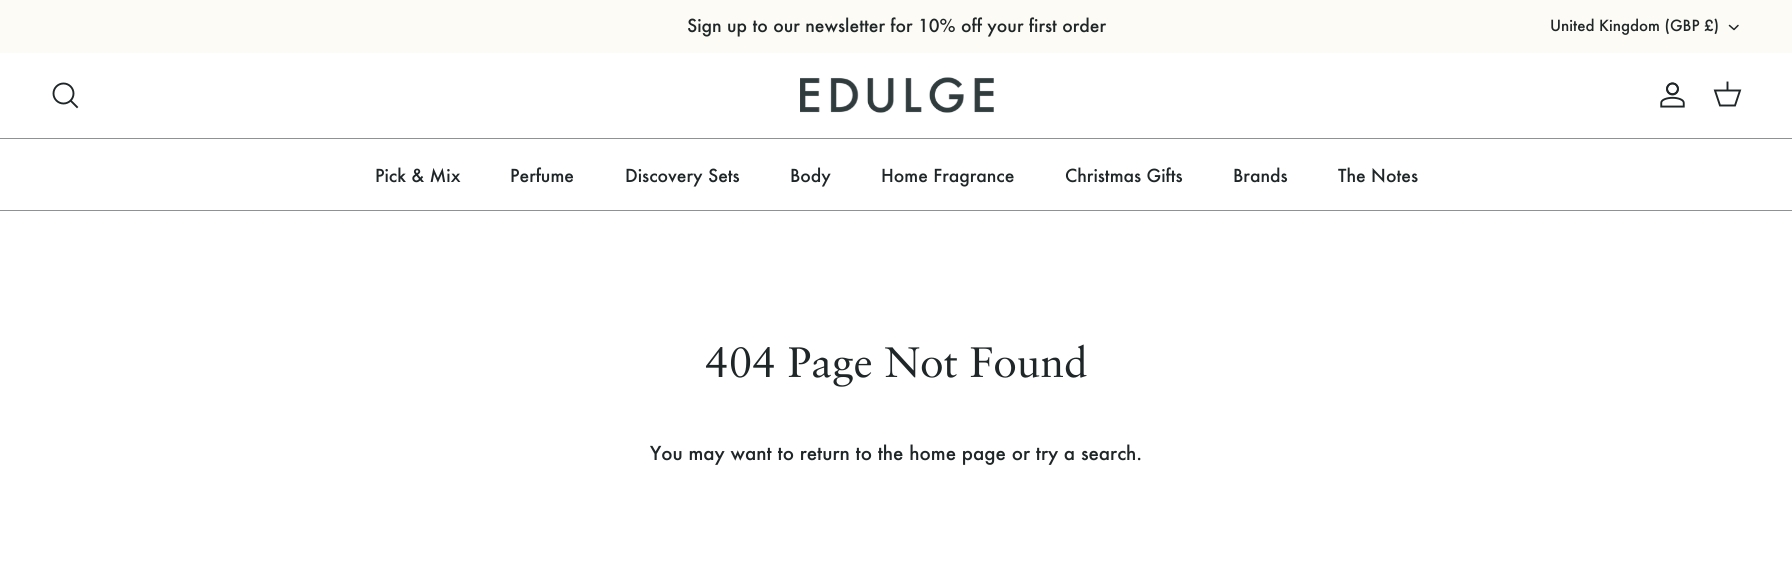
import math
import cairo

surface = cairo.ImageSurface(cairo.FORMAT_RGB24, 1792, 571)
ctx = cairo.Context(surface)
options = cairo.FontOptions()
options.set_hint_metrics(cairo.HINT_METRICS_OFF)
options.set_hint_style(cairo.HINT_STYLE_NONE)
ctx.set_font_options(options)
ctx.set_miter_limit(4)


def picture(path, x, y, w, h):
    ctx.save()
    ctx.set_source_surface(cairo.ImageSurface.create_from_png(path), x, y)
    ctx.rectangle(x, y, w, h)
    ctx.fill()
    ctx.restore()


ctx.set_source_rgb(1, 1, 1)
ctx.paint()
ctx.set_source_rgb(0.992, 0.984, 0.961)
ctx.rectangle(0, 0, 1792, 53)
ctx.fill()
ctx.select_font_face("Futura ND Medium")
ctx.set_font_size(17.5)
ctx.set_source_rgb(0.122, 0.149, 0.153)
ctx.move_to(687, 32)
ctx.show_text("Sign up to our newsletter for 10% off your first order")
ctx.set_font_size(15)
ctx.move_to(1550, 31)
ctx.show_text("United Kingdom (GBP £)")
ctx.new_path()
ctx.move_to(1729.5, 25.5)
ctx.line_to(1734, 29.5)
ctx.line_to(1738, 25.5)
ctx.set_line_width(1.5)
ctx.set_line_cap(cairo.LINE_CAP_ROUND)
ctx.set_line_join(cairo.LINE_JOIN_ROUND)
ctx.stroke()
ctx.set_source_rgb(0.561, 0.573, 0.576)
ctx.rectangle(0, 138, 1792, 1)
ctx.fill()
ctx.arc(63.5, 93.5, 10, 0, 2 * math.pi)
ctx.set_source_rgb(0.122, 0.149, 0.153)
ctx.set_line_width(1.9)
ctx.set_line_cap(cairo.LINE_CAP_BUTT)
ctx.set_line_join(cairo.LINE_JOIN_MITER)
ctx.stroke()
ctx.new_path()
ctx.move_to(71, 101)
ctx.line_to(77, 107)
ctx.set_line_cap(cairo.LINE_CAP_SQUARE)
ctx.stroke()
picture("img1.png", 800, 77, 194, 36)
picture("img2.png", 1660, 82, 25, 26)
ctx.new_path()
ctx.move_to(1715, 90.5)
ctx.line_to(1740, 90.5)
ctx.line_to(1735, 105.5)
ctx.line_to(1720, 105.5)
ctx.close_path()
ctx.set_line_cap(cairo.LINE_CAP_BUTT)
ctx.stroke()
ctx.new_path()
ctx.move_to(1727.5, 90)
ctx.line_to(1727.5, 82.5)
ctx.set_line_cap(cairo.LINE_CAP_SQUARE)
ctx.stroke()
ctx.set_source_rgb(0.561, 0.573, 0.576)
ctx.rectangle(0, 210, 1792, 1)
ctx.fill()
ctx.set_font_size(17.5)
ctx.set_source_rgb(0.122, 0.149, 0.153)
ctx.move_to(375, 182)
ctx.show_text("Pick & Mix")
ctx.move_to(510, 182)
ctx.show_text("Perfume")
ctx.move_to(625, 182)
ctx.show_text("Discovery Sets")
ctx.move_to(790, 182)
ctx.show_text("Body")
ctx.move_to(881, 182)
ctx.show_text("Home Fragrance")
ctx.move_to(1065, 182)
ctx.show_text("Christmas Gifts")
ctx.move_to(1233, 182)
ctx.show_text("Brands")
ctx.move_to(1338, 182)
ctx.show_text("The Notes")
ctx.select_font_face("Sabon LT")
ctx.set_font_size(42.5)
ctx.move_to(705, 377)
ctx.show_text("404 Page Not Found")
ctx.select_font_face("Futura ND Medium")
ctx.set_font_size(18.75)
ctx.move_to(650, 460)
ctx.show_text("You may want to return to the home page or try a search.")
surface.write_to_png("page.png")
